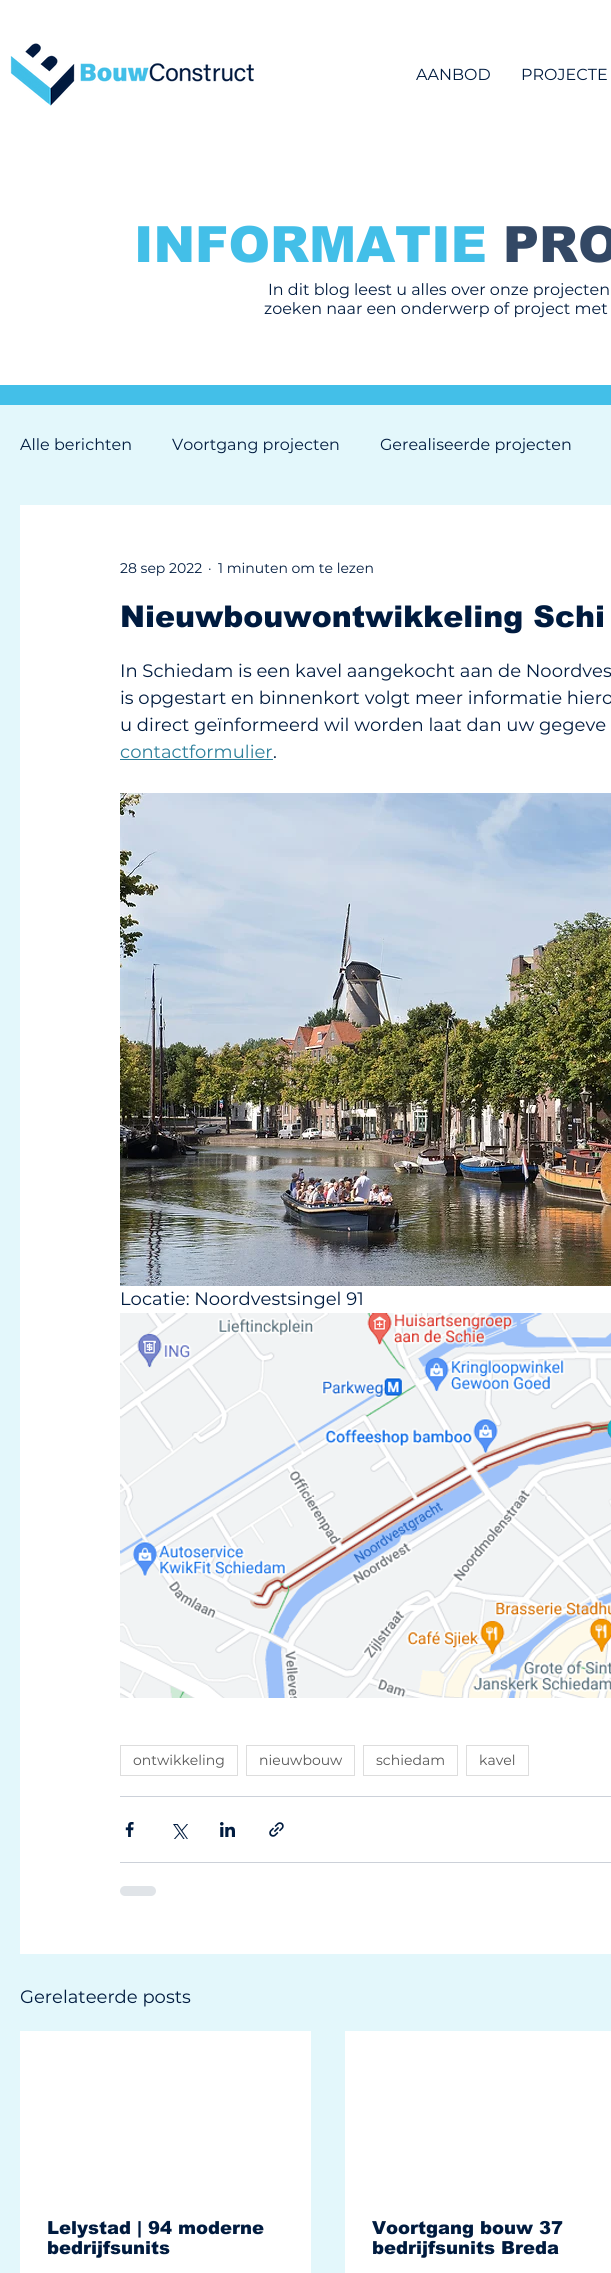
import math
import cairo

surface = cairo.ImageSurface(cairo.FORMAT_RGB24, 611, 2273)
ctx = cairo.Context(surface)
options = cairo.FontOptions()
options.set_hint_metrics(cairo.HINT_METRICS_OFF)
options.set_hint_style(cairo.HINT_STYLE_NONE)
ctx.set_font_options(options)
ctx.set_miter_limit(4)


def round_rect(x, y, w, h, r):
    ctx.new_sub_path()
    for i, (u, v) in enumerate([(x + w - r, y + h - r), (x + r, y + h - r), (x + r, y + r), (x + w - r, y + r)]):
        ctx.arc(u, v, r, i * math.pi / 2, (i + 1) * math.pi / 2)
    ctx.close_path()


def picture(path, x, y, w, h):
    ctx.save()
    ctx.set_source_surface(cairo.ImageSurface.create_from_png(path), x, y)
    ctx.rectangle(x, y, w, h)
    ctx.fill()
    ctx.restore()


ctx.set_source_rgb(0.263, 0.749, 0.91)
ctx.paint()
ctx.set_source_rgb(1, 1, 1)
ctx.rectangle(0, 0, 611, 385)
ctx.fill()
picture("img1.png", 10, 43, 244, 63)
ctx.select_font_face("Montserrat")
ctx.set_font_size(16)
ctx.set_source_rgb(0, 0.106, 0.247)
ctx.move_to(416, 80)
ctx.show_text("AANBOD")
ctx.move_to(521, 80)
ctx.show_text("PROJECTE")
ctx.select_font_face("arial Black")
ctx.set_font_size(50)
ctx.set_source_rgb(0.263, 0.749, 0.91)
ctx.move_to(134, 262)
ctx.show_text("INFORMATIE")
ctx.set_source_rgb(0.2, 0.282, 0.396)
ctx.move_to(503, 262)
ctx.show_text("PRO")
ctx.select_font_face("Montserrat")
ctx.set_font_size(16)
ctx.set_source_rgb(0, 0.106, 0.247)
ctx.move_to(268, 295)
ctx.show_text("In dit blog leest u alles over onze projecten")
ctx.move_to(264, 314)
ctx.show_text("zoeken naar een onderwerp of project met")
ctx.set_source_rgb(0.89, 0.965, 0.984)
ctx.rectangle(0, 405, 611, 1868)
ctx.fill()
ctx.set_source_rgb(0, 0.106, 0.247)
ctx.move_to(20, 450)
ctx.show_text("Alle berichten")
ctx.move_to(172, 450)
ctx.show_text("Voortgang projecten")
ctx.move_to(380, 450)
ctx.show_text("Gerealiseerde projecten")
ctx.set_source_rgb(1, 1, 1)
ctx.rectangle(20, 505, 591, 1449)
ctx.fill()
ctx.set_font_size(14)
ctx.set_source_rgb(0, 0.106, 0.247)
ctx.move_to(120, 573)
ctx.show_text("28 sep 2022")
ctx.move_to(208, 573)
ctx.show_text("·")
ctx.move_to(218, 573)
ctx.show_text("1 minuten om te lezen")
ctx.select_font_face("arial Black")
ctx.set_font_size(30)
ctx.move_to(120, 627)
ctx.show_text("Nieuwbouwontwikkeling Schi")
ctx.select_font_face("Montserrat")
ctx.set_font_size(18)
ctx.move_to(120, 677)
ctx.show_text("In Schiedam is een kavel aangekocht aan de Noordves")
ctx.move_to(120, 704)
ctx.show_text("is opgestart en binnenkort volgt meer informatie hiero")
ctx.move_to(120, 731)
ctx.show_text("u direct geïnformeerd wil worden laat dan uw gegeve")
ctx.set_source_rgb(0.176, 0.498, 0.608)
ctx.move_to(120, 758)
ctx.show_text("contactformulier")
ctx.rectangle(120, 759, 153, 1)
ctx.fill()
ctx.set_source_rgb(0, 0.106, 0.247)
ctx.move_to(273, 758)
ctx.show_text(".")
picture("img2.png", 120, 793, 491, 493)
ctx.move_to(120, 1305)
ctx.show_text("Locatie: Noordvestsingel 91")
picture("img3.png", 120, 1313, 491, 385)
ctx.rectangle(120.5, 1745.5, 117, 30)
ctx.set_source_rgb(0.867, 0.867, 0.867)
ctx.set_line_width(1)
ctx.stroke()
ctx.set_font_size(14)
ctx.set_source_rgb(0.333, 0.333, 0.333)
ctx.move_to(133, 1765)
ctx.show_text("ontwikkeling")
ctx.rectangle(246.5, 1745.5, 108, 30)
ctx.set_source_rgb(0.867, 0.867, 0.867)
ctx.stroke()
ctx.set_source_rgb(0.333, 0.333, 0.333)
ctx.move_to(259, 1765)
ctx.show_text("nieuwbouw")
ctx.rectangle(363.5, 1745.5, 94, 30)
ctx.set_source_rgb(0.867, 0.867, 0.867)
ctx.stroke()
ctx.set_source_rgb(0.333, 0.333, 0.333)
ctx.move_to(376, 1765)
ctx.show_text("schiedam")
ctx.rectangle(466.5, 1745.5, 62, 30)
ctx.set_source_rgb(0.867, 0.867, 0.867)
ctx.stroke()
ctx.set_source_rgb(0.333, 0.333, 0.333)
ctx.move_to(479, 1765)
ctx.show_text("kavel")
ctx.set_source_rgb(0.8, 0.82, 0.851)
ctx.rectangle(120, 1796, 491, 1)
ctx.fill()
picture("img4.png", 125, 1822, 9, 15)
picture("img5.png", 173, 1824, 15, 15)
picture("img6.png", 220, 1822, 15, 15)
picture("img7.png", 269, 1822, 15, 15)
ctx.rectangle(120, 1862, 491, 1)
ctx.fill()
ctx.set_source_rgb(0.878, 0.894, 0.91)
round_rect(120, 1886, 36, 10, 5)
ctx.fill()
ctx.set_font_size(18)
ctx.set_source_rgb(0, 0.106, 0.247)
ctx.move_to(20, 2003)
ctx.show_text("Gerelateerde posts")
ctx.set_source_rgb(1, 1, 1)
ctx.rectangle(20, 2031, 291, 242)
ctx.fill()
ctx.select_font_face("arial Black")
ctx.set_source_rgb(0, 0.106, 0.247)
ctx.move_to(47, 2234)
ctx.show_text("Lelystad | 94 moderne")
ctx.move_to(47, 2254)
ctx.show_text("bedrijfsunits")
ctx.set_source_rgb(1, 1, 1)
ctx.rectangle(345, 2031, 266, 242)
ctx.fill()
ctx.set_source_rgb(0, 0.106, 0.247)
ctx.move_to(372, 2234)
ctx.show_text("Voortgang bouw 37")
ctx.move_to(372, 2254)
ctx.show_text("bedrijfsunits Breda")
surface.write_to_png("page.png")
